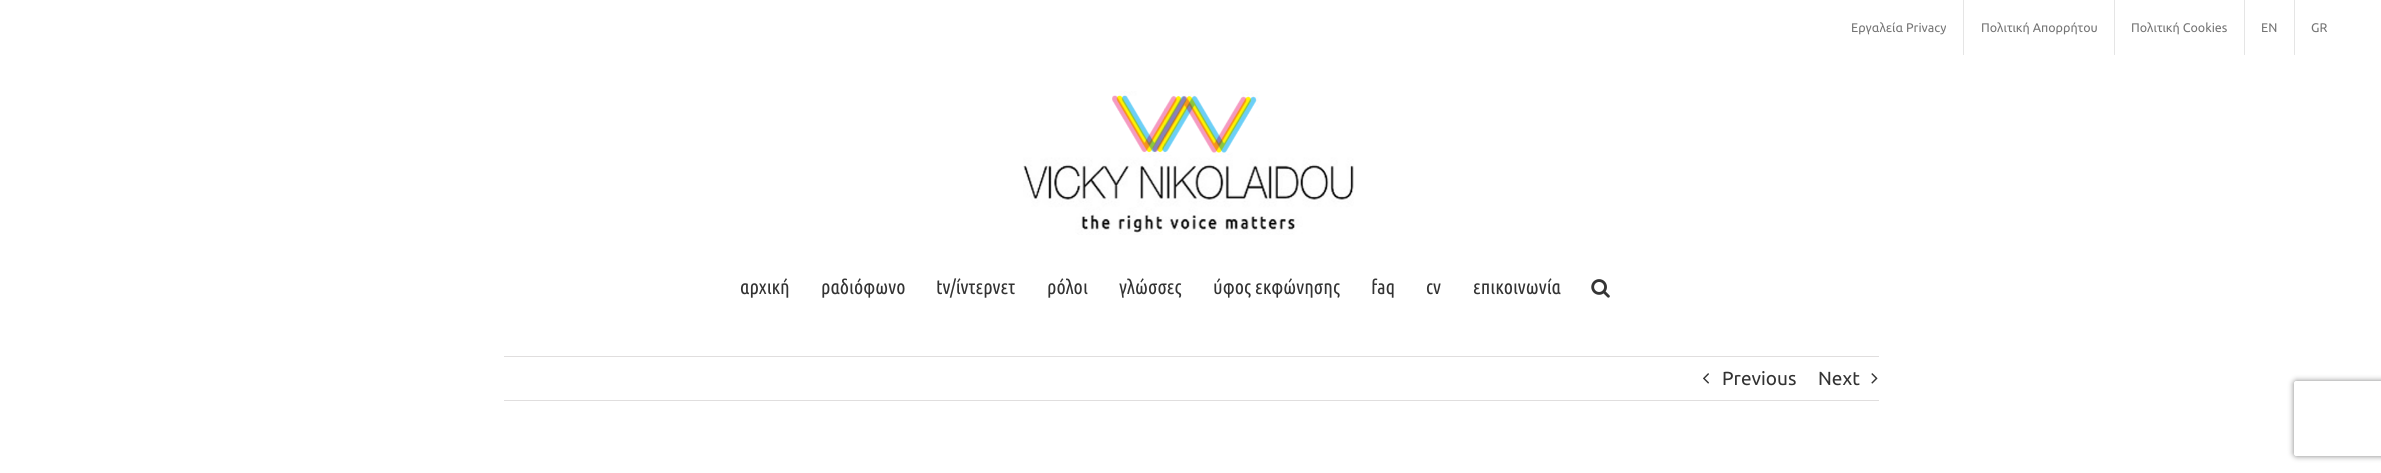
import math
import cairo

surface = cairo.ImageSurface(cairo.FORMAT_RGB24, 2381, 473)
ctx = cairo.Context(surface)
options = cairo.FontOptions()
options.set_hint_metrics(cairo.HINT_METRICS_OFF)
options.set_hint_style(cairo.HINT_STYLE_NONE)
ctx.set_font_options(options)
ctx.set_miter_limit(4)


def round_rect(x, y, w, h, r):
    ctx.new_sub_path()
    for i, (u, v) in enumerate([(x + w - r, y + h - r), (x + r, y + h - r), (x + r, y + r), (x + w - r, y + r)]):
        ctx.arc(u, v, r, i * math.pi / 2, (i + 1) * math.pi / 2)
    ctx.close_path()


def shadow(x, y, w, h, r, blur, alpha):
    ctx.push_group_with_content(cairo.CONTENT_ALPHA)
    ctx.set_operator(cairo.OPERATOR_SOURCE)
    for i in range(15, -16, -2):
        e = blur * i / 6
        if min(w, h) + 2 * e > 0:
            ctx.set_source_rgba(0, 0, 0, alpha * math.erfc((i - 1) / 8.5) / 2)
            round_rect(x - e, y - e, w + 2 * e, h + 2 * e, max(0, min(r + e + blur * .6, min(w, h) / 2 + e)))
            ctx.fill()
    ctx.mask(ctx.pop_group())


def picture(path, x, y, w, h):
    ctx.save()
    ctx.set_source_surface(cairo.ImageSurface.create_from_png(path), x, y)
    ctx.rectangle(x, y, w, h)
    ctx.fill()
    ctx.restore()


ctx.set_source_rgb(1, 1, 1)
ctx.paint()
ctx.select_font_face("Ubuntu")
ctx.set_font_size(12.5)
ctx.set_source_rgb(0.455, 0.455, 0.455)
ctx.move_to(1851, 32)
ctx.show_text("Εργαλεία Privacy")
ctx.set_source_rgb(0.898, 0.898, 0.898)
ctx.rectangle(1963, 0, 1, 55)
ctx.fill()
ctx.set_source_rgb(0.455, 0.455, 0.455)
ctx.move_to(1981, 32)
ctx.show_text("Πολιτική Απορρήτου")
ctx.set_source_rgb(0.898, 0.898, 0.898)
ctx.rectangle(2114, 0, 1, 55)
ctx.fill()
ctx.set_source_rgb(0.455, 0.455, 0.455)
ctx.move_to(2131, 32)
ctx.show_text("Πολιτική Cookies")
ctx.set_source_rgb(0.898, 0.898, 0.898)
ctx.rectangle(2244, 0, 1, 55)
ctx.fill()
ctx.set_source_rgb(0.455, 0.455, 0.455)
ctx.move_to(2261, 32)
ctx.show_text("EN")
ctx.set_source_rgb(0.898, 0.898, 0.898)
ctx.rectangle(2294, 0, 1, 55)
ctx.fill()
ctx.set_source_rgb(0.455, 0.455, 0.455)
ctx.move_to(2311, 32)
ctx.show_text("GR")
picture("img1.png", 1023, 91, 331, 144)
ctx.select_font_face("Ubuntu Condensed")
ctx.set_font_size(20)
ctx.set_source_rgb(0.2, 0.2, 0.2)
ctx.move_to(740, 294)
ctx.show_text("αρχική")
ctx.move_to(821, 294)
ctx.show_text("ραδιόφωνο")
ctx.move_to(936, 294)
ctx.show_text("tv/ίντερνετ")
ctx.move_to(1047, 294)
ctx.show_text("ρόλοι")
ctx.move_to(1119, 294)
ctx.show_text("γλώσσες")
ctx.move_to(1213, 294)
ctx.show_text("ύφος εκφώνησης")
ctx.move_to(1371, 294)
ctx.show_text("faq")
ctx.move_to(1426, 294)
ctx.show_text("cv")
ctx.move_to(1473, 294)
ctx.show_text("επικοινωνία")
picture("img2.png", 1591, 279, 19, 19)
ctx.set_source_rgb(0.878, 0.871, 0.871)
ctx.rectangle(504, 356, 1375, 1)
ctx.fill()
ctx.rectangle(504, 400, 1375, 1)
ctx.fill()
picture("img3.png", 1703, 373, 6, 11)
ctx.select_font_face("Ubuntu")
ctx.set_font_size(19)
ctx.set_source_rgb(0.2, 0.2, 0.2)
ctx.move_to(1722, 385)
ctx.show_text("Previous")
ctx.move_to(1818, 385)
ctx.show_text("Next")
picture("img4.png", 1871, 373, 7, 11)
ctx.save()
ctx.set_fill_rule(cairo.FILL_RULE_EVEN_ODD)
ctx.new_path()
ctx.move_to(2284, 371)
ctx.line_to(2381, 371)
ctx.line_to(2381, 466)
ctx.line_to(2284, 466)
ctx.close_path()
ctx.move_to(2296.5, 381)
ctx.line_to(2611.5, 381)
ctx.curve_to(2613, 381, 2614, 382, 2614, 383.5)
ctx.line_to(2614, 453.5)
ctx.curve_to(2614, 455, 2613, 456, 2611.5, 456)
ctx.line_to(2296.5, 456)
ctx.curve_to(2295, 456, 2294, 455, 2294, 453.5)
ctx.line_to(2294, 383.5)
ctx.curve_to(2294, 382, 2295, 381, 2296.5, 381)
ctx.close_path()
ctx.clip()
ctx.set_source_rgb(0.502, 0.502, 0.502)
shadow(2294, 381, 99, 75, 2.5, 3, 1)
ctx.restore()
surface.write_to_png("page.png")
